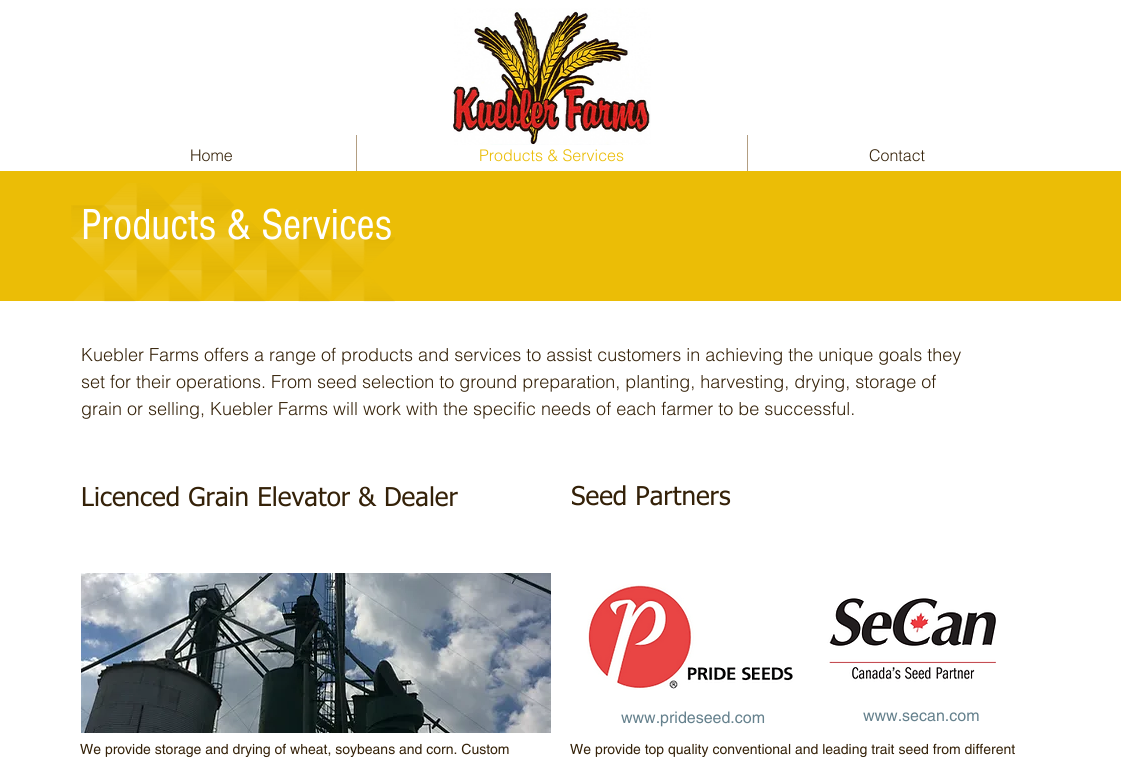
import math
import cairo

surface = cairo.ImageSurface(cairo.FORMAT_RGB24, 1121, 771)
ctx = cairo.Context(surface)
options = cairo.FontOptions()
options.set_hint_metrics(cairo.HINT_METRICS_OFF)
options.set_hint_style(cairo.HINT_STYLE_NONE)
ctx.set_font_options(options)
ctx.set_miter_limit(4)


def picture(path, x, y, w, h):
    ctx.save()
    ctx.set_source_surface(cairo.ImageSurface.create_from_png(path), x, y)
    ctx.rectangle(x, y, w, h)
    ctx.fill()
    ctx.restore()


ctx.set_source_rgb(1, 1, 1)
ctx.paint()
picture("img1.png", 453, 8, 198, 137)
ctx.select_font_face("helvetica Light")
ctx.set_font_size(16)
ctx.set_source_rgb(0.204, 0.129, 0.035)
ctx.move_to(190, 161)
ctx.show_text("Home")
ctx.set_source_rgb(0.702, 0.62, 0.51)
ctx.rectangle(356, 135, 1, 40)
ctx.fill()
ctx.set_source_rgb(0.918, 0.741, 0.027)
ctx.move_to(479, 161)
ctx.show_text("Products & Services")
ctx.set_source_rgb(0.702, 0.62, 0.51)
ctx.rectangle(747, 135, 1, 40)
ctx.fill()
ctx.set_source_rgb(0.204, 0.129, 0.035)
ctx.move_to(869, 161)
ctx.show_text("Contact")
ctx.set_source_rgb(0.918, 0.741, 0.027)
ctx.rectangle(0, 171, 1121, 130)
ctx.fill()
picture("img2.png", 71, 183, 324, 119)
ctx.select_font_face("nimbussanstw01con")
ctx.set_font_size(45)
ctx.set_source_rgb(1, 1, 1)
ctx.move_to(81, 239)
ctx.show_text("Products & Services")
ctx.select_font_face("helvetica Light")
ctx.set_font_size(18)
ctx.set_source_rgb(0.204, 0.129, 0.035)
ctx.move_to(81, 361)
ctx.show_text("Kuebler Farms offers a range of products and services to assist customers in achieving the unique goals they")
ctx.move_to(81, 388)
ctx.show_text("set for their operations. From seed selection to ground preparation, planting, harvesting, drying, storage of")
ctx.move_to(81, 415)
ctx.show_text("grain or selling, Kuebler Farms will work with the specific needs of each farmer to be successful.")
ctx.select_font_face("tahoma")
ctx.set_font_size(26)
ctx.move_to(81, 506)
ctx.show_text("Licenced Grain Elevator & Dealer")
ctx.move_to(571, 505)
ctx.show_text("Seed Partners")
picture("img3.png", 81, 573, 470, 160)
picture("img4.png", 587, 584, 409, 106)
ctx.select_font_face("helvetica")
ctx.set_font_size(16)
ctx.set_source_rgb(0.396, 0.506, 0.553)
ctx.move_to(621, 723)
ctx.show_text("www.prideseed.com")
ctx.move_to(863, 721)
ctx.show_text("www.secan.com")
ctx.set_font_size(14)
ctx.set_source_rgb(0.204, 0.129, 0.035)
ctx.move_to(80, 754)
ctx.show_text("We provide storage and drying of wheat, soybeans and corn. Custom")
ctx.move_to(570, 754)
ctx.show_text("We provide top quality conventional and leading trait seed from different")
surface.write_to_png("page.png")
